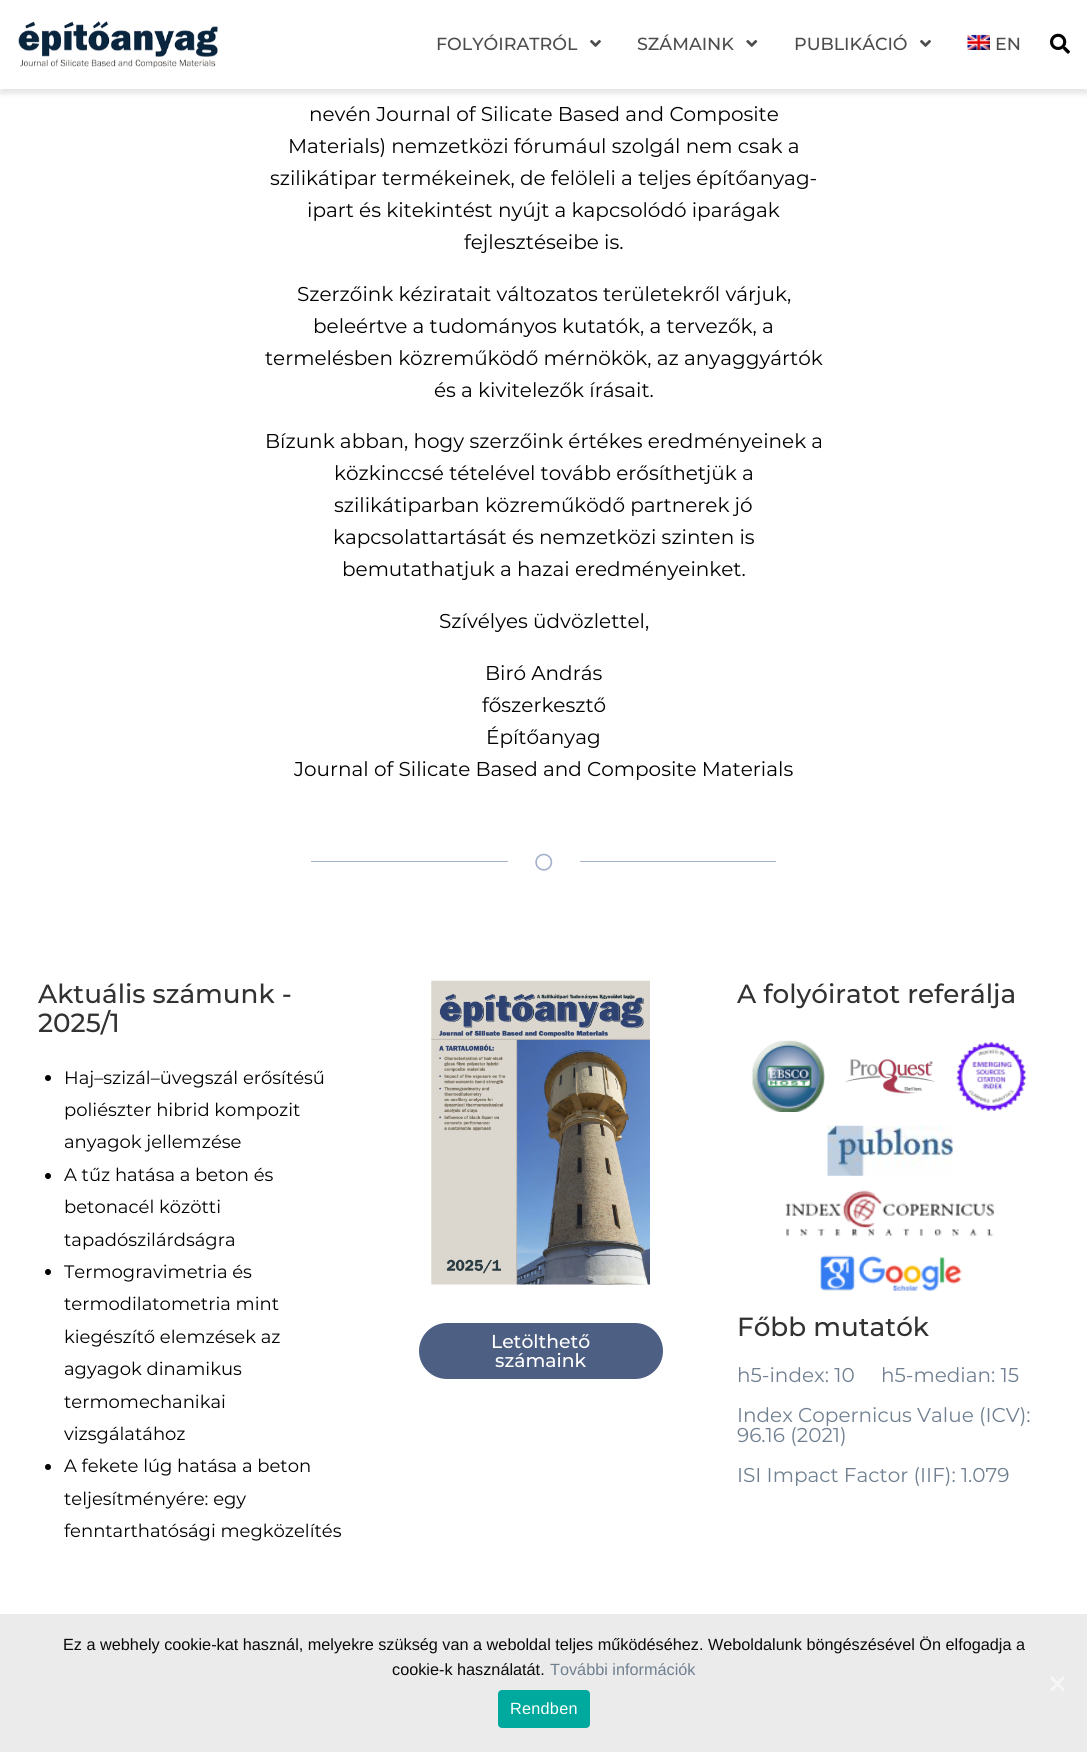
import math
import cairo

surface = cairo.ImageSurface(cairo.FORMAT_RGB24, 1087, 1752)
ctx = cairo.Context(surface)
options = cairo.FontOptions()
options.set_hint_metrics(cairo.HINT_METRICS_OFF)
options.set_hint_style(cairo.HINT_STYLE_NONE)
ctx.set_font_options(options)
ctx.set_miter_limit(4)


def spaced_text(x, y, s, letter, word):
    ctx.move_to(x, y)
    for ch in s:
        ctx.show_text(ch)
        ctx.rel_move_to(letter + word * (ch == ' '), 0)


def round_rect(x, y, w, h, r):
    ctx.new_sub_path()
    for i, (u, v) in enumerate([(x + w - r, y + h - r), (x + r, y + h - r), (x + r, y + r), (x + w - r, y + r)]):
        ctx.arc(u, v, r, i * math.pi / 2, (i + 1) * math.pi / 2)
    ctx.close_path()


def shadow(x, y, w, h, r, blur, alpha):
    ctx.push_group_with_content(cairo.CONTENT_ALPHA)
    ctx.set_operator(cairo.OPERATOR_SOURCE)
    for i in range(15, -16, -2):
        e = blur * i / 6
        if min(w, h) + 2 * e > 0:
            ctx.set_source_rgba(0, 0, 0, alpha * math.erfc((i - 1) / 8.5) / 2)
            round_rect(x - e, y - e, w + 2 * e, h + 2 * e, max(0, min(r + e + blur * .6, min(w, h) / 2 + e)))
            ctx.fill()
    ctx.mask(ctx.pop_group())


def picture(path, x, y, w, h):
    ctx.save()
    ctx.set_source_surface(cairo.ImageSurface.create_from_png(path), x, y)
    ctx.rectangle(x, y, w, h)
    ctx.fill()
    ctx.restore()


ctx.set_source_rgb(1, 1, 1)
ctx.paint()
ctx.set_source_rgb(0, 0, 0)
shadow(0, 5, 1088, 89, 0, 2.5, 0.1)
ctx.set_source_rgb(1, 1, 1)
ctx.rectangle(0, 2, 1087, 87)
ctx.fill()
picture("img1.png", 18, 21, 200, 47)
ctx.select_font_face("Montserrat Medium")
ctx.set_font_size(17.5)
ctx.set_source_rgb(0.298, 0.298, 0.298)
ctx.move_to(436, 50)
ctx.show_text("FOLYÓIRATRÓL")
picture("img2.png", 590, 40, 11, 7)
ctx.move_to(637, 50)
ctx.show_text("SZÁMAINK")
picture("img3.png", 746, 40, 12, 7)
ctx.move_to(794, 50)
ctx.show_text("PUBLIKÁCIÓ")
picture("img2.png", 920, 40, 11, 7)
picture("img4.png", 967, 34, 23, 16)
ctx.move_to(995, 50)
ctx.show_text("EN")
picture("img5.png", 1050, 33, 20, 21)
ctx.select_font_face("Montserrat")
ctx.set_font_size(20)
ctx.set_source_rgb(0, 0, 0)
ctx.move_to(309, 121)
ctx.show_text("nevén Journal of Silicate Based and Composite")
ctx.move_to(288, 153)
ctx.show_text("Materials) nemzetközi fórumául szolgál nem csak a")
ctx.move_to(270, 185)
ctx.show_text("szilikátipar termékeinek, de felöleli a teljes építőanyag-")
ctx.move_to(307, 217)
ctx.show_text("ipart és kitekintést nyújt a kapcsolódó iparágak")
ctx.move_to(464, 249)
ctx.show_text("fejlesztéseibe is.")
ctx.move_to(297, 301)
ctx.show_text("Szerzőink kéziratait változatos területekről várjuk,")
ctx.move_to(313, 333)
ctx.show_text("beleértve a tudományos kutatók, a tervezők, a")
ctx.move_to(265, 365)
ctx.show_text("termelésben közreműködő mérnökök, az anyaggyártók")
ctx.move_to(434, 397)
ctx.show_text("és a kivitelezők írásait.")
ctx.move_to(265, 448)
ctx.show_text("Bízunk abban, hogy szerzőink értékes eredményeinek a")
ctx.move_to(334, 480)
ctx.show_text("közkinccsé tételével tovább erősíthetjük a")
ctx.move_to(334, 512)
ctx.show_text("szilikátiparban közreműködő partnerek jó")
ctx.move_to(333, 544)
ctx.show_text("kapcsolattartását és nemzetközi szinten is")
ctx.move_to(342, 576)
ctx.show_text("bemutathatjuk a hazai eredményeinket.")
ctx.move_to(439, 628)
ctx.show_text("Szívélyes üdvözlettel,")
ctx.move_to(485, 680)
ctx.show_text("Biró András")
ctx.move_to(482, 712)
ctx.show_text("főszerkesztő")
ctx.move_to(486, 744)
ctx.show_text("Építőanyag")
ctx.move_to(294, 776)
ctx.show_text("Journal of Silicate Based and Composite Materials")
ctx.set_source_rgb(0.643, 0.694, 0.804)
ctx.rectangle(311, 861, 197, 1)
ctx.fill()
picture("img6.png", 535, 853, 18, 18)
ctx.rectangle(580, 861, 196, 1)
ctx.fill()
ctx.select_font_face("Montserrat Medium")
ctx.set_font_size(26.25)
ctx.set_source_rgb(0.196, 0.196, 0.196)
ctx.move_to(38, 1003)
ctx.show_text("Aktuális számunk -")
ctx.move_to(38, 1032)
ctx.show_text("2025/1")
ctx.set_source_rgb(0, 0, 0)
ctx.new_path()
ctx.arc(48, 1078, 3, 0, 2 * math.pi)
ctx.fill()
ctx.select_font_face("Montserrat")
ctx.set_font_size(18)
ctx.move_to(64, 1084)
ctx.show_text("Haj–szizál–üvegszál erősítésű")
ctx.move_to(64, 1116)
ctx.show_text("poliészter hibrid kompozit")
ctx.move_to(64, 1148)
ctx.show_text("anyagok jellemzése")
ctx.new_path()
ctx.arc(48, 1176, 3, 0, 2 * math.pi)
ctx.fill()
ctx.move_to(64, 1181)
ctx.show_text("A tűz hatása a beton és")
ctx.move_to(64, 1213)
ctx.show_text("betonacél közötti")
ctx.move_to(64, 1246)
ctx.show_text("tapadószilárdságra")
ctx.new_path()
ctx.arc(48, 1272, 3, 0, 2 * math.pi)
ctx.fill()
ctx.move_to(64, 1278)
ctx.show_text("Termogravimetria és")
ctx.move_to(64, 1310)
ctx.show_text("termodilatometria mint")
ctx.move_to(64, 1343)
ctx.show_text("kiegészítő elemzések az")
ctx.move_to(64, 1375)
ctx.show_text("agyagok dinamikus")
ctx.move_to(64, 1408)
ctx.show_text("termomechanikai")
ctx.move_to(64, 1440)
ctx.show_text("vizsgálatához")
ctx.new_path()
ctx.arc(48, 1467, 3, 0, 2 * math.pi)
ctx.fill()
ctx.move_to(64, 1472)
ctx.show_text("A fekete lúg hatása a beton")
ctx.move_to(64, 1505)
ctx.show_text("teljesítményére: egy")
ctx.move_to(64, 1537)
ctx.show_text("fenntarthatósági megközelítés")
picture("img7.png", 431, 980, 219, 305)
ctx.set_source_rgb(0.306, 0.373, 0.518)
round_rect(419, 1323, 244, 56, 28)
ctx.fill()
ctx.select_font_face("Montserrat Medium")
ctx.set_font_size(18.75)
ctx.set_source_rgb(1, 1, 1)
ctx.move_to(491, 1348)
ctx.show_text("Letölthető")
ctx.move_to(495, 1367)
ctx.show_text("számaink")
ctx.set_font_size(26.25)
ctx.set_source_rgb(0.196, 0.196, 0.196)
ctx.move_to(737, 1003)
ctx.show_text("A folyóiratot referálja")
picture("img8.png", 751, 1040, 74, 72)
picture("img9.png", 845, 1059, 90, 35)
picture("img10.png", 956, 1041, 71, 70)
picture("img11.png", 827, 1125, 126, 51)
picture("img12.png", 785, 1190, 210, 46)
picture("img13.png", 820, 1255, 142, 36)
ctx.move_to(737, 1336)
ctx.show_text("Főbb mutatók")
ctx.select_font_face("Montserrat")
ctx.set_font_size(20)
ctx.set_source_rgb(0.439, 0.502, 0.565)
ctx.move_to(737, 1382)
ctx.show_text("h5-index: 10")
ctx.move_to(881, 1382)
ctx.show_text("h5-median: 15")
ctx.move_to(737, 1422)
ctx.show_text("Index Copernicus Value (ICV):")
ctx.move_to(737, 1442)
ctx.show_text("96.16 (2021)")
ctx.move_to(737, 1482)
ctx.show_text("ISI Impact Factor (IIF): 1.079")
ctx.set_source_rgb(0.918, 0.918, 0.918)
ctx.rectangle(0, 1614, 1087, 138)
ctx.fill()
ctx.select_font_face("Liberation Sans")
ctx.set_font_size(16.25)
ctx.set_source_rgb(0.039, 0.039, 0.039)
ctx.move_to(63, 1650)
ctx.show_text("Ez a webhely cookie-kat használ, melyekre szükség van a weboldal teljes működéséhez. Weboldalunk böngészésével Ön elfogadja a")
ctx.move_to(392, 1675)
ctx.show_text("cookie-k használatát.")
ctx.set_source_rgb(0.439, 0.502, 0.565)
ctx.move_to(550, 1675)
ctx.show_text("További információk")
ctx.set_source_rgb(0.961, 0.961, 0.961)
ctx.new_path()
ctx.move_to(1063, 1676)
ctx.line_to(1065, 1678)
ctx.line_to(1052, 1691.5)
ctx.line_to(1050, 1689.5)
ctx.close_path()
ctx.fill()
ctx.new_path()
ctx.move_to(1050, 1678)
ctx.line_to(1052, 1676)
ctx.line_to(1065, 1689.5)
ctx.line_to(1063, 1691.5)
ctx.close_path()
ctx.fill()
ctx.set_source_rgb(0, 0.663, 0.616)
round_rect(498, 1690, 92, 38, 4)
ctx.fill()
ctx.set_source_rgb(1, 1, 1)
spaced_text(510, 1714, "Rendben", 0.25, 0)
surface.write_to_png("page.png")
